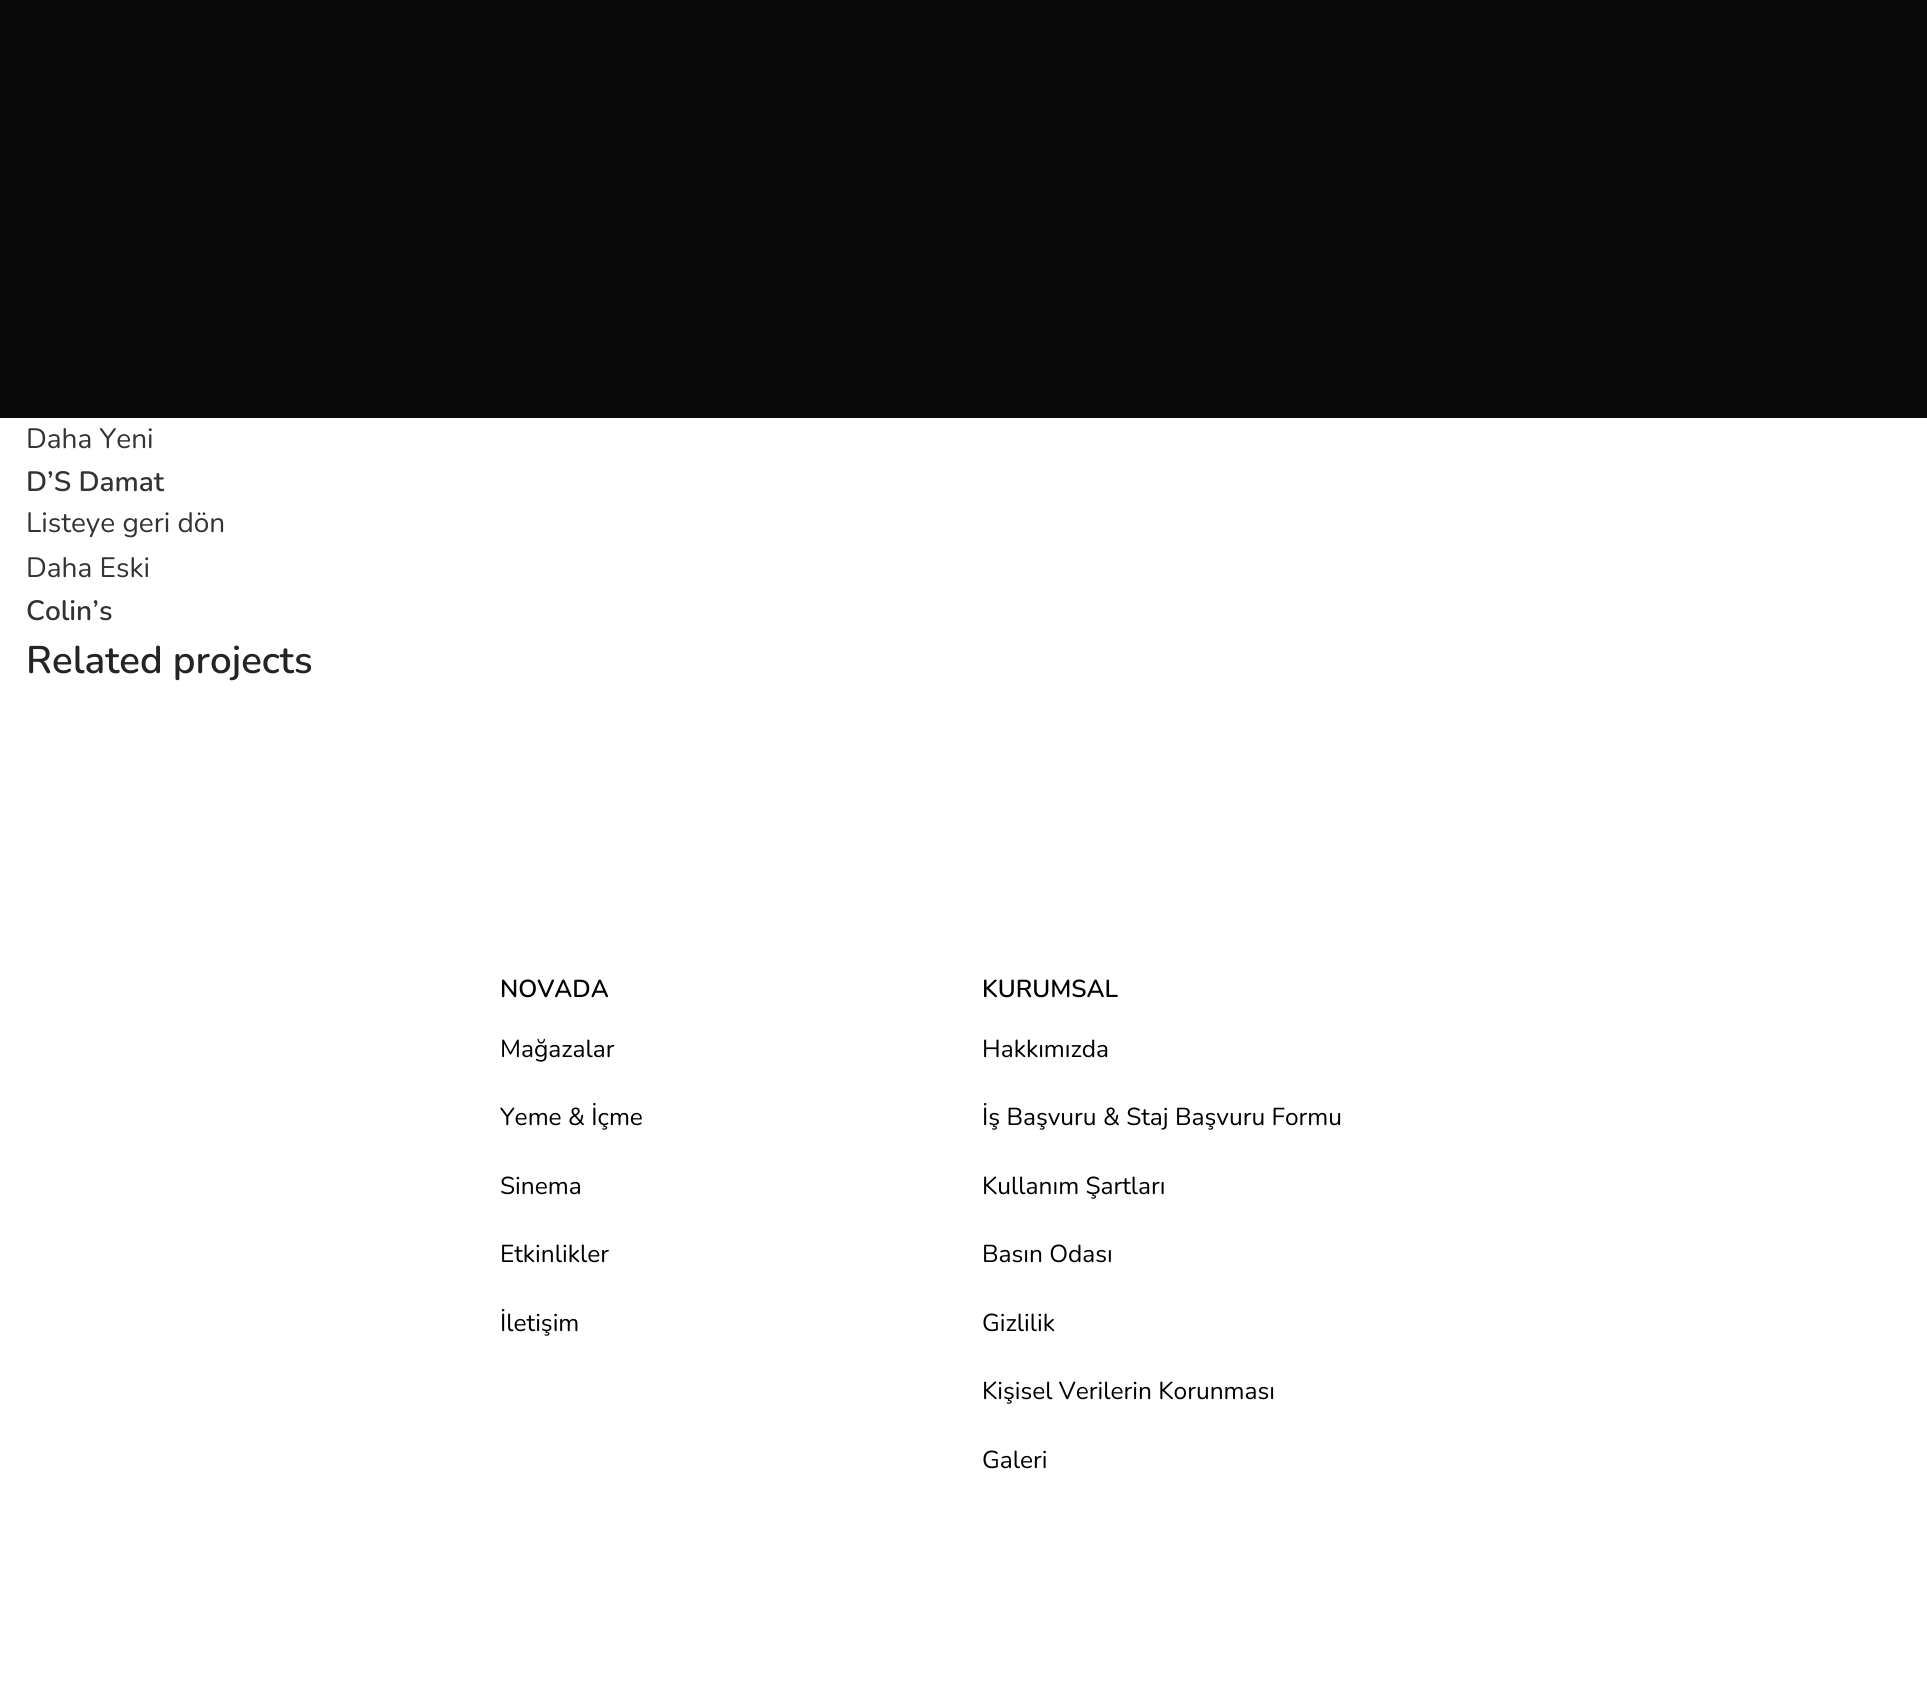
import math
import cairo

surface = cairo.ImageSurface(cairo.FORMAT_RGB24, 1927, 1691)
ctx = cairo.Context(surface)
options = cairo.FontOptions()
options.set_hint_metrics(cairo.HINT_METRICS_OFF)
options.set_hint_style(cairo.HINT_STYLE_NONE)
ctx.set_font_options(options)
ctx.set_miter_limit(4)


ctx.set_source_rgb(1, 1, 1)
ctx.paint()
ctx.set_source_rgb(0.039, 0.039, 0.039)
ctx.rectangle(0, 0, 1927, 418)
ctx.fill()
ctx.select_font_face("Nunito")
ctx.set_font_size(28)
ctx.set_source_rgb(0.2, 0.2, 0.2)
ctx.move_to(26, 448)
ctx.show_text("Daha Yeni")
ctx.select_font_face("Nunito SemiBold")
ctx.move_to(26, 491)
ctx.show_text("D’S Damat")
ctx.select_font_face("Nunito")
ctx.move_to(26, 532)
ctx.show_text("Listeye geri dön")
ctx.move_to(26, 577)
ctx.show_text("Daha Eski")
ctx.select_font_face("Nunito SemiBold")
ctx.move_to(26, 620)
ctx.show_text("Colin’s")
ctx.set_font_size(38.5)
ctx.set_source_rgb(0.141, 0.141, 0.141)
ctx.move_to(26, 673)
ctx.show_text("Related projects")
ctx.set_font_size(24.5)
ctx.set_source_rgb(0, 0, 0)
ctx.move_to(500, 997)
ctx.show_text("NOVADA")
ctx.select_font_face("Nunito")
ctx.move_to(500, 1057)
ctx.show_text("Mağazalar")
ctx.move_to(500, 1125)
ctx.show_text("Yeme & İçme")
ctx.move_to(500, 1194)
ctx.show_text("Sinema")
ctx.move_to(500, 1262)
ctx.show_text("Etkinlikler")
ctx.move_to(500, 1331)
ctx.show_text("İletişim")
ctx.select_font_face("Nunito SemiBold")
ctx.move_to(982, 997)
ctx.show_text("KURUMSAL")
ctx.select_font_face("Nunito")
ctx.move_to(982, 1057)
ctx.show_text("Hakkımızda")
ctx.move_to(982, 1125)
ctx.show_text("İş Başvuru & Staj Başvuru Formu")
ctx.move_to(982, 1194)
ctx.show_text("Kullanım Şartları")
ctx.move_to(982, 1262)
ctx.show_text("Basın Odası")
ctx.move_to(982, 1331)
ctx.show_text("Gizlilik")
ctx.move_to(982, 1399)
ctx.show_text("Kişisel Verilerin Korunması")
ctx.move_to(982, 1468)
ctx.show_text("Galeri")
surface.write_to_png("page.png")
